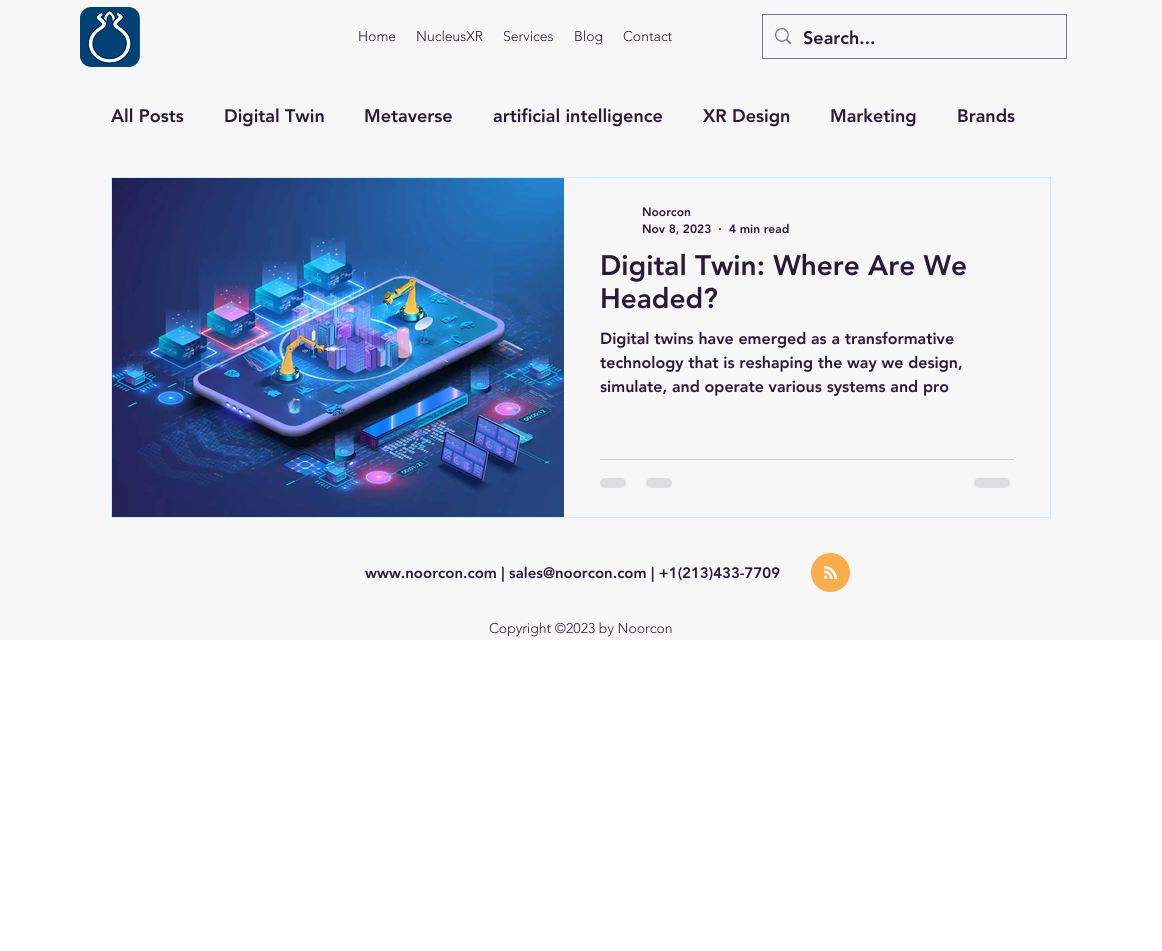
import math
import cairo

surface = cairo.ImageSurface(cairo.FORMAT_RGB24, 1162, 951)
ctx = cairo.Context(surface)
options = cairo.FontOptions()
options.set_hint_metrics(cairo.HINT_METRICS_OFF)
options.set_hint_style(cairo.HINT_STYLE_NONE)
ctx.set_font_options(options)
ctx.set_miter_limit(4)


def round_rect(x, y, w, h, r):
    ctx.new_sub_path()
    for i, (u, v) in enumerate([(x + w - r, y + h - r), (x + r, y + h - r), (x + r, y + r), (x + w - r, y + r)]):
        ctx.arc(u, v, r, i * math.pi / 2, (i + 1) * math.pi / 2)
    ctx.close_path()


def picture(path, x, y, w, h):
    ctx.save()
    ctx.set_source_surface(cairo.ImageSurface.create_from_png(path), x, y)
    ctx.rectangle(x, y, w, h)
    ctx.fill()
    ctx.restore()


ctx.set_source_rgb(1, 1, 1)
ctx.paint()
ctx.set_source_rgb(0.965, 0.965, 0.965)
ctx.rectangle(0, 0, 1162, 640)
ctx.fill()
picture("img1.png", 80, 7, 60, 60)
ctx.select_font_face("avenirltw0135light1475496 Light")
ctx.set_font_size(14)
ctx.set_source_rgb(0.157, 0.102, 0.224)
ctx.move_to(358, 41)
ctx.show_text("Home")
ctx.move_to(416, 41)
ctx.show_text("NucleusXR")
ctx.move_to(503, 41)
ctx.show_text("Services")
ctx.move_to(574, 41)
ctx.show_text("Blog")
ctx.move_to(623, 41)
ctx.show_text("Contact")
ctx.rectangle(762.5, 14.5, 304, 44)
ctx.set_source_rgb(0.478, 0.447, 0.522)
ctx.set_line_width(1)
ctx.stroke()
picture("img2.png", 775, 28, 16, 17)
ctx.select_font_face("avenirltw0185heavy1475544 Black")
ctx.set_font_size(18)
ctx.set_source_rgb(0.157, 0.102, 0.224)
ctx.move_to(803, 44)
ctx.show_text("Search...")
ctx.move_to(111, 122)
ctx.show_text("All Posts")
ctx.move_to(224, 122)
ctx.show_text("Digital Twin")
ctx.move_to(364, 122)
ctx.show_text("Metaverse")
ctx.move_to(493, 122)
ctx.show_text("artificial intelligence")
ctx.move_to(703, 122)
ctx.show_text("XR Design")
ctx.move_to(830, 122)
ctx.show_text("Marketing")
ctx.move_to(957, 122)
ctx.show_text("Brands")
ctx.rectangle(111.5, 177.5, 939, 340)
ctx.set_source_rgb(0.796, 0.925, 0.98)
ctx.stroke()
picture("img3.png", 112, 178, 452, 339)
ctx.set_font_size(12)
ctx.set_source_rgb(0.157, 0.102, 0.224)
ctx.move_to(642, 216)
ctx.show_text("Noorcon")
ctx.move_to(642, 233)
ctx.show_text("Nov 8, 2023")
ctx.new_path()
ctx.arc(720, 229, 1, 0, 2 * math.pi)
ctx.fill()
ctx.move_to(729, 233)
ctx.show_text("4 min read")
ctx.set_font_size(28)
ctx.move_to(600, 275)
ctx.show_text("Digital Twin: Where Are We")
ctx.move_to(600, 308)
ctx.show_text("Headed?")
ctx.set_font_size(16)
ctx.move_to(600, 344)
ctx.show_text("Digital twins have emerged as a transformative")
ctx.move_to(600, 368)
ctx.show_text("technology that is reshaping the way we design,")
ctx.move_to(600, 392)
ctx.show_text("simulate, and operate various systems and pro")
ctx.set_source_rgb(0.804, 0.792, 0.816)
ctx.rectangle(600, 459, 414, 1)
ctx.fill()
ctx.set_source_rgb(0.867, 0.863, 0.875)
round_rect(600, 478, 26, 10, 5)
ctx.fill()
round_rect(646, 478, 26, 10, 5)
ctx.fill()
round_rect(974, 478, 36, 10, 5)
ctx.fill()
ctx.set_font_size(15)
ctx.set_source_rgb(0.157, 0.102, 0.224)
ctx.move_to(365, 578)
ctx.show_text("www.noorcon.com | sales@noorcon.com | +1(213)433-7709")
picture("img4.png", 811, 553, 39, 39)
ctx.select_font_face("avenirltw0135light1475496 Light")
ctx.set_font_size(14)
ctx.move_to(489, 633)
ctx.show_text("Copyright ©2023 by Noorcon")
surface.write_to_png("page.png")
